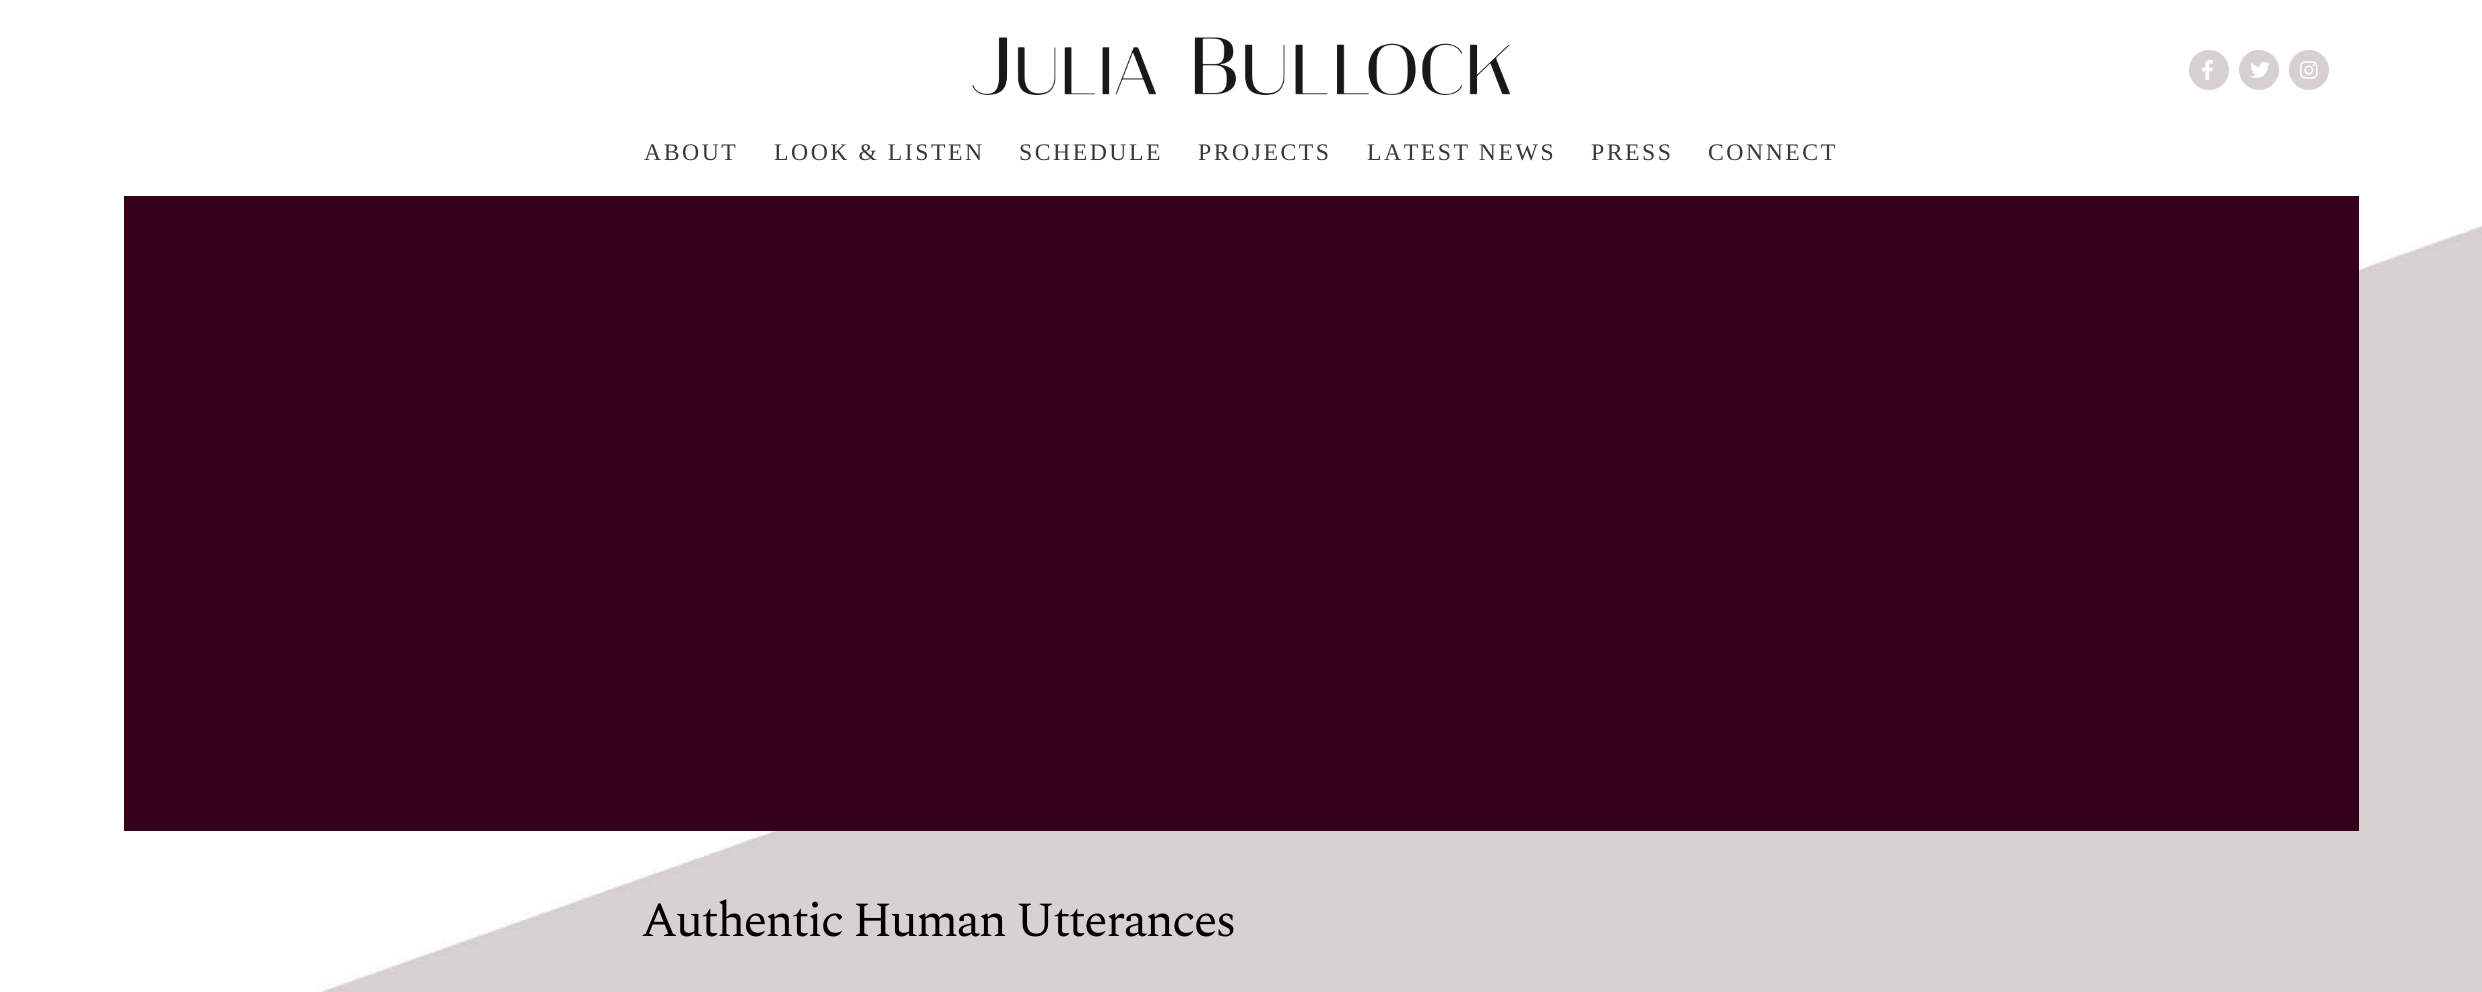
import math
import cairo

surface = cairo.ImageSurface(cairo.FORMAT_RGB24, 2482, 992)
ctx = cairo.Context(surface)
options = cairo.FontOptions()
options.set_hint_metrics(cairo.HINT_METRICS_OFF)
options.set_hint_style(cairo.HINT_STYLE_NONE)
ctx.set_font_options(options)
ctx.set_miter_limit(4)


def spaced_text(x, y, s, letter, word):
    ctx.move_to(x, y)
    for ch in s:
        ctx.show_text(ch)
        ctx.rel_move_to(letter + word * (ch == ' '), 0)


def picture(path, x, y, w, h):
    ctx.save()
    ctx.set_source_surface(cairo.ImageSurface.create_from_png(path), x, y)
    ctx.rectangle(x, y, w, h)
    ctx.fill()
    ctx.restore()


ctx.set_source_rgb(1, 1, 1)
ctx.paint()
picture("img1.png", 316, 225, 2166, 767)
picture("img2.png", 972, 37, 538, 58)
ctx.set_source_rgb(0.839, 0.82, 0.812)
ctx.arc(2209, 70, 20, 0, 2 * math.pi)
ctx.fill()
picture("img3.png", 2202, 60, 11, 20)
ctx.arc(2259, 70, 20, 0, 2 * math.pi)
ctx.fill()
picture("img4.png", 2250, 61, 20, 18)
ctx.arc(2309, 70, 20, 0, 2 * math.pi)
ctx.fill()
picture("img5.png", 2300, 61, 18, 18)
ctx.select_font_face("Liberation Serif")
ctx.set_font_size(23.75)
ctx.set_source_rgb(0.22, 0.22, 0.22)
spaced_text(644, 160, "ABOUT", 2.5, 0)
spaced_text(774, 160, "LOOK & LISTEN", 2.5, 0)
spaced_text(1019, 160, "SCHEDULE", 2.5, 0)
spaced_text(1198, 160, "PROJECTS", 2.5, 0)
spaced_text(1367, 160, "LATEST NEWS", 2.5, 0)
spaced_text(1591, 160, "PRESS", 2.5, 0)
spaced_text(1708, 160, "CONNECT", 2.5, 0)
ctx.set_source_rgb(0.204, 0, 0.11)
ctx.rectangle(124, 196, 2235, 635)
ctx.fill()
ctx.select_font_face("Spectral")
ctx.set_font_size(49)
ctx.set_source_rgb(0, 0, 0)
spaced_text(641, 936, "Authentic Human Utterances", -1.9, 0)
surface.write_to_png("page.png")
